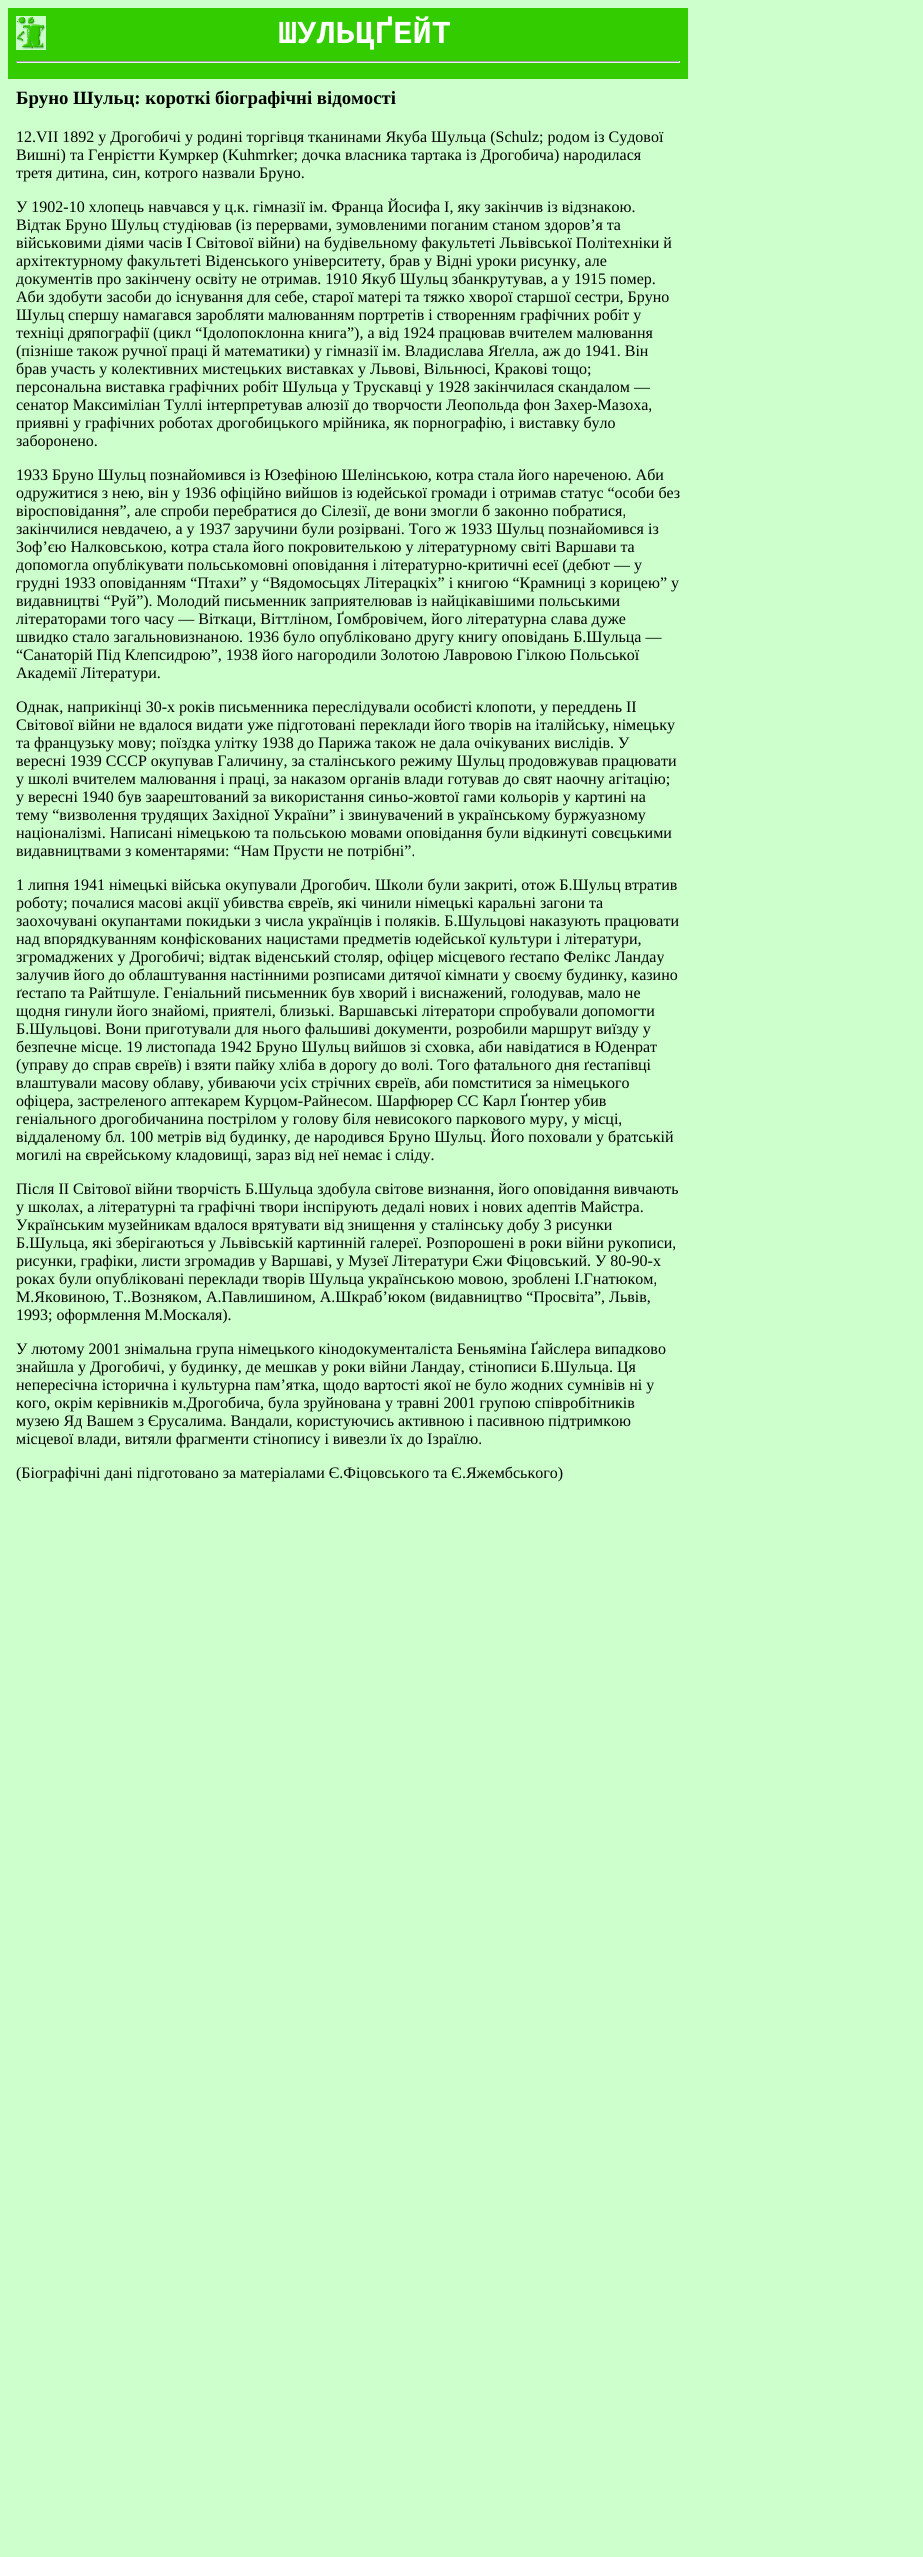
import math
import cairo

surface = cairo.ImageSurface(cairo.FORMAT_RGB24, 923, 2557)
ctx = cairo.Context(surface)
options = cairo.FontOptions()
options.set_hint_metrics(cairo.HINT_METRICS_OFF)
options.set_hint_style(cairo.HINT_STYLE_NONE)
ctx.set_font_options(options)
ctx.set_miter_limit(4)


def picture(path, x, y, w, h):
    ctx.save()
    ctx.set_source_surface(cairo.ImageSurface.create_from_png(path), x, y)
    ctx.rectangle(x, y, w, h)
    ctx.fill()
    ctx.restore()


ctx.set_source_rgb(0.8, 1, 0.8)
ctx.paint()
ctx.set_source_rgb(0.2, 0.8, 0)
ctx.rectangle(8, 8, 680, 71)
ctx.fill()
picture("img1.png", 16, 16, 30, 34)
ctx.select_font_face("Liberation Mono", cairo.FONT_SLANT_NORMAL, cairo.FONT_WEIGHT_BOLD)
ctx.set_font_size(32)
ctx.set_source_rgb(1, 1, 1)
ctx.move_to(278, 43)
ctx.show_text("ШУЛЬЦҐЕЙТ")
ctx.set_source_rgb(0.624, 0.624, 0.624)
ctx.rectangle(16, 61, 664, 1)
ctx.fill()
ctx.set_source_rgb(0.933, 0.933, 0.933)
ctx.rectangle(679, 61, 1, 2)
ctx.fill()
ctx.rectangle(16, 62, 664, 1)
ctx.fill()
ctx.set_source_rgb(0.624, 0.624, 0.624)
ctx.rectangle(16, 61, 1, 2)
ctx.fill()
ctx.select_font_face("Liberation Serif", cairo.FONT_SLANT_NORMAL, cairo.FONT_WEIGHT_BOLD)
ctx.set_font_size(18.75)
ctx.set_source_rgb(0, 0, 0)
ctx.move_to(16, 104)
ctx.show_text("Бруно Шульц: короткі біографічні відомості")
ctx.select_font_face("Liberation Serif")
ctx.set_font_size(16)
ctx.move_to(16, 142)
ctx.show_text("12.VII 1892 у Дрогобичі у родині торгівця тканинами Якуба Шульца (Schulz; родом із Судової")
ctx.move_to(16, 160)
ctx.show_text("Вишні) та Генрієтти Кумркер (Kuhmrker; дочка власника тартака із Дрогобича) народилася")
ctx.move_to(16, 178)
ctx.show_text("третя дитина, син, котрого назвали Бруно.")
ctx.move_to(16, 212)
ctx.show_text("У 1902-10 хлопець навчався у ц.к. гімназії ім. Франца Йосифа I, яку закінчив із відзнакою.")
ctx.move_to(16, 230)
ctx.show_text("Відтак Бруно Шульц студіював (із перервами, зумовленими поганим станом здоров’я та")
ctx.move_to(16, 248)
ctx.show_text("військовими діями часів I Світової війни) на будівельному факультеті Львівської Політехніки й")
ctx.move_to(16, 266)
ctx.show_text("архітектурному факультеті Віденського університету, брав у Відні уроки рисунку, але")
ctx.move_to(16, 284)
ctx.show_text("документів про закінчену освіту не отримав. 1910 Якуб Шульц збанкрутував, а у 1915 помер.")
ctx.move_to(16, 302)
ctx.show_text("Аби здобути засоби до існування для себе, старої матері та тяжко хворої старшої сестри, Бруно")
ctx.move_to(16, 320)
ctx.show_text("Шульц спершу намагався заробляти малюванням портретів і створенням графічних робіт у")
ctx.move_to(16, 338)
ctx.show_text("техніці дряпографії (цикл “Ідолопоклонна книга”), а від 1924 працював вчителем малювання")
ctx.move_to(16, 356)
ctx.show_text("(пізніше також ручної праці й математики) у гімназії ім. Владислава Яґелла, аж до 1941. Він")
ctx.move_to(16, 374)
ctx.show_text("брав участь у колективних мистецьких виставках у Львові, Вільнюсі, Кракові тощо;")
ctx.move_to(16, 392)
ctx.show_text("персональна виставка графічних робіт Шульца у Трускавці у 1928 закінчилася скандалом —")
ctx.move_to(16, 410)
ctx.show_text("сенатор Максиміліан Туллі інтерпретував алюзії до творчости Леопольда фон Захер-Мазоха,")
ctx.move_to(16, 428)
ctx.show_text("приявні у графічних роботах дрогобицького мрійника, як порнографію, і виставку було")
ctx.move_to(16, 446)
ctx.show_text("заборонено.")
ctx.move_to(16, 480)
ctx.show_text("1933 Бруно Шульц познайомився із Юзефіною Шелінською, котра стала його нареченою. Аби")
ctx.move_to(16, 498)
ctx.show_text("одружитися з нею, він у 1936 офіційно вийшов із юдейської громади і отримав статус “особи без")
ctx.move_to(16, 516)
ctx.show_text("віросповідання”, але спроби перебратися до Сілезії, де вони змогли б законно побратися,")
ctx.move_to(16, 534)
ctx.show_text("закінчилися невдачею, а у 1937 заручини були розірвані. Того ж 1933 Шульц познайомився із")
ctx.move_to(16, 552)
ctx.show_text("Зоф’єю Налковською, котра стала його покровителькою у літературному світі Варшави та")
ctx.move_to(16, 570)
ctx.show_text("допомогла опублікувати польськомовні оповідання і літературно-критичні есеї (дебют — у")
ctx.move_to(16, 588)
ctx.show_text("грудні 1933 оповіданням “Птахи” у “Вядомосьцях Літерацкіх” і книгою “Крамниці з корицею” у")
ctx.move_to(16, 606)
ctx.show_text("видавництві “Руй”). Молодий письменник заприятелював із найцікавішими польськими")
ctx.move_to(16, 624)
ctx.show_text("літераторами того часу — Віткаци, Віттліном, Ґомбровічем, його літературна слава дуже")
ctx.move_to(16, 642)
ctx.show_text("швидко стало загальновизнаною. 1936 було опубліковано другу книгу оповідань Б.Шульца —")
ctx.move_to(16, 660)
ctx.show_text("“Санаторій Під Клепсидрою”, 1938 його нагородили Золотою Лавровою Гілкою Польської")
ctx.move_to(16, 678)
ctx.show_text("Академії Літератури.")
ctx.move_to(16, 712)
ctx.show_text("Однак, наприкінці 30-х років письменника переслідували особисті клопоти, у переддень II")
ctx.move_to(16, 730)
ctx.show_text("Світової війни не вдалося видати уже підготовані переклади його творів на італійську, німецьку")
ctx.move_to(16, 748)
ctx.show_text("та французьку мову; поїздка улітку 1938 до Парижа також не дала очікуваних вислідів. У")
ctx.move_to(16, 766)
ctx.show_text("вересні 1939 СССР окупував Галичину, за сталінського режиму Шульц продовжував працювати")
ctx.move_to(16, 784)
ctx.show_text("у школі вчителем малювання і праці, за наказом органів влади готував до свят наочну агітацію;")
ctx.move_to(16, 802)
ctx.show_text("у вересні 1940 був заарештований за використання синьо-жовтої гами кольорів у картині на")
ctx.move_to(16, 820)
ctx.show_text("тему “визволення трудящих Західної України” і звинувачений в українському буржуазному")
ctx.move_to(16, 838)
ctx.show_text("націоналізмі. Написані німецькою та польською мовами оповідання були відкинуті совєцькими")
ctx.move_to(16, 856)
ctx.show_text("видавництвами з коментарями: “Нам Прусти не потрібні”.")
ctx.move_to(16, 890)
ctx.show_text("1 липня 1941 німецькі війська окупували Дрогобич. Школи були закриті, отож Б.Шульц втратив")
ctx.move_to(16, 908)
ctx.show_text("роботу; почалися масові акції убивства євреїв, які чинили німецькі каральні загони та")
ctx.move_to(16, 926)
ctx.show_text("заохочувані окупантами покидьки з числа українців і поляків. Б.Шульцові наказують працювати")
ctx.move_to(16, 944)
ctx.show_text("над впорядкуванням конфіскованих нацистами предметів юдейської культури і літератури,")
ctx.move_to(16, 962)
ctx.show_text("згромаджених у Дрогобичі; відтак віденський столяр, офіцер місцевого ґестапо Фелікс Ландау")
ctx.move_to(16, 980)
ctx.show_text("залучив його до облаштування настінними розписами дитячої кімнати у своєму будинку, казино")
ctx.move_to(16, 998)
ctx.show_text("ґестапо та Райтшуле. Геніальний письменник був хворий і виснажений, голодував, мало не")
ctx.move_to(16, 1016)
ctx.show_text("щодня гинули його знайомі, приятелі, близькі. Варшавські літератори спробували допомогти")
ctx.move_to(16, 1034)
ctx.show_text("Б.Шульцові. Вони приготували для нього фальшиві документи, розробили маршрут виїзду у")
ctx.move_to(16, 1052)
ctx.show_text("безпечне місце. 19 листопада 1942 Бруно Шульц вийшов зі сховка, аби навідатися в Юденрат")
ctx.move_to(16, 1070)
ctx.show_text("(управу до справ євреїв) і взяти пайку хліба в дорогу до волі. Того фатального дня ґестапівці")
ctx.move_to(16, 1088)
ctx.show_text("влаштували масову облаву, убиваючи усіх стрічних євреїв, аби помститися за німецького")
ctx.move_to(16, 1106)
ctx.show_text("офіцера, застреленого аптекарем Курцом-Райнесом. Шарфюрер СС Карл Ґюнтер убив")
ctx.move_to(16, 1124)
ctx.show_text("геніального дрогобичанина пострілом у голову біля невисокого паркового муру, у місці,")
ctx.move_to(16, 1142)
ctx.show_text("віддаленому бл. 100 метрів від будинку, де народився Бруно Шульц. Його поховали у братській")
ctx.move_to(16, 1160)
ctx.show_text("могилі на єврейському кладовищі, зараз від неї немає і сліду.")
ctx.move_to(16, 1194)
ctx.show_text("Після II Світової війни творчість Б.Шульца здобула світове визнання, його оповідання вивчають")
ctx.move_to(16, 1212)
ctx.show_text("у школах, а літературні та графічні твори інспірують дедалі нових і нових адептів Майстра.")
ctx.move_to(16, 1230)
ctx.show_text("Українським музейникам вдалося врятувати від знищення у сталінську добу 3 рисунки")
ctx.move_to(16, 1248)
ctx.show_text("Б.Шульца, які зберігаються у Львівській картинній галереї. Розпорошені в роки війни рукописи,")
ctx.move_to(16, 1266)
ctx.show_text("рисунки, графіки, листи згромадив у Варшаві, у Музеї Літератури Єжи Фіцовський. У 80-90-х")
ctx.move_to(16, 1284)
ctx.show_text("роках були опубліковані переклади творів Шульца українською мовою, зроблені І.Гнатюком,")
ctx.move_to(16, 1302)
ctx.show_text("М.Яковиною, Т..Возняком, А.Павлишином, А.Шкраб’юком (видавництво “Просвіта”, Львів,")
ctx.move_to(16, 1320)
ctx.show_text("1993; оформлення М.Москаля).")
ctx.move_to(16, 1354)
ctx.show_text("У лютому 2001 знімальна група німецького кінодокументаліста Беньяміна Ґайслера випадково")
ctx.move_to(16, 1372)
ctx.show_text("знайшла у Дрогобичі, у будинку, де мешкав у роки війни Ландау, стінописи Б.Шульца. Ця")
ctx.move_to(16, 1390)
ctx.show_text("непересічна історична і культурна пам’ятка, щодо вартості якої не було жодних сумнівів ні у")
ctx.move_to(16, 1408)
ctx.show_text("кого, окрім керівників м.Дрогобича, була зруйнована у травні 2001 групою співробітників")
ctx.move_to(16, 1426)
ctx.show_text("музею Яд Вашем з Єрусалима. Вандали, користуючись активною і пасивною підтримкою")
ctx.move_to(16, 1444)
ctx.show_text("місцевої влади, витяли фрагменти стінопису і вивезли їх до Ізраїлю.")
ctx.move_to(16, 1478)
ctx.show_text("(Біографічні дані підготовано за матеріалами Є.Фіцовського та Є.Яжембського)")
surface.write_to_png("page.png")
